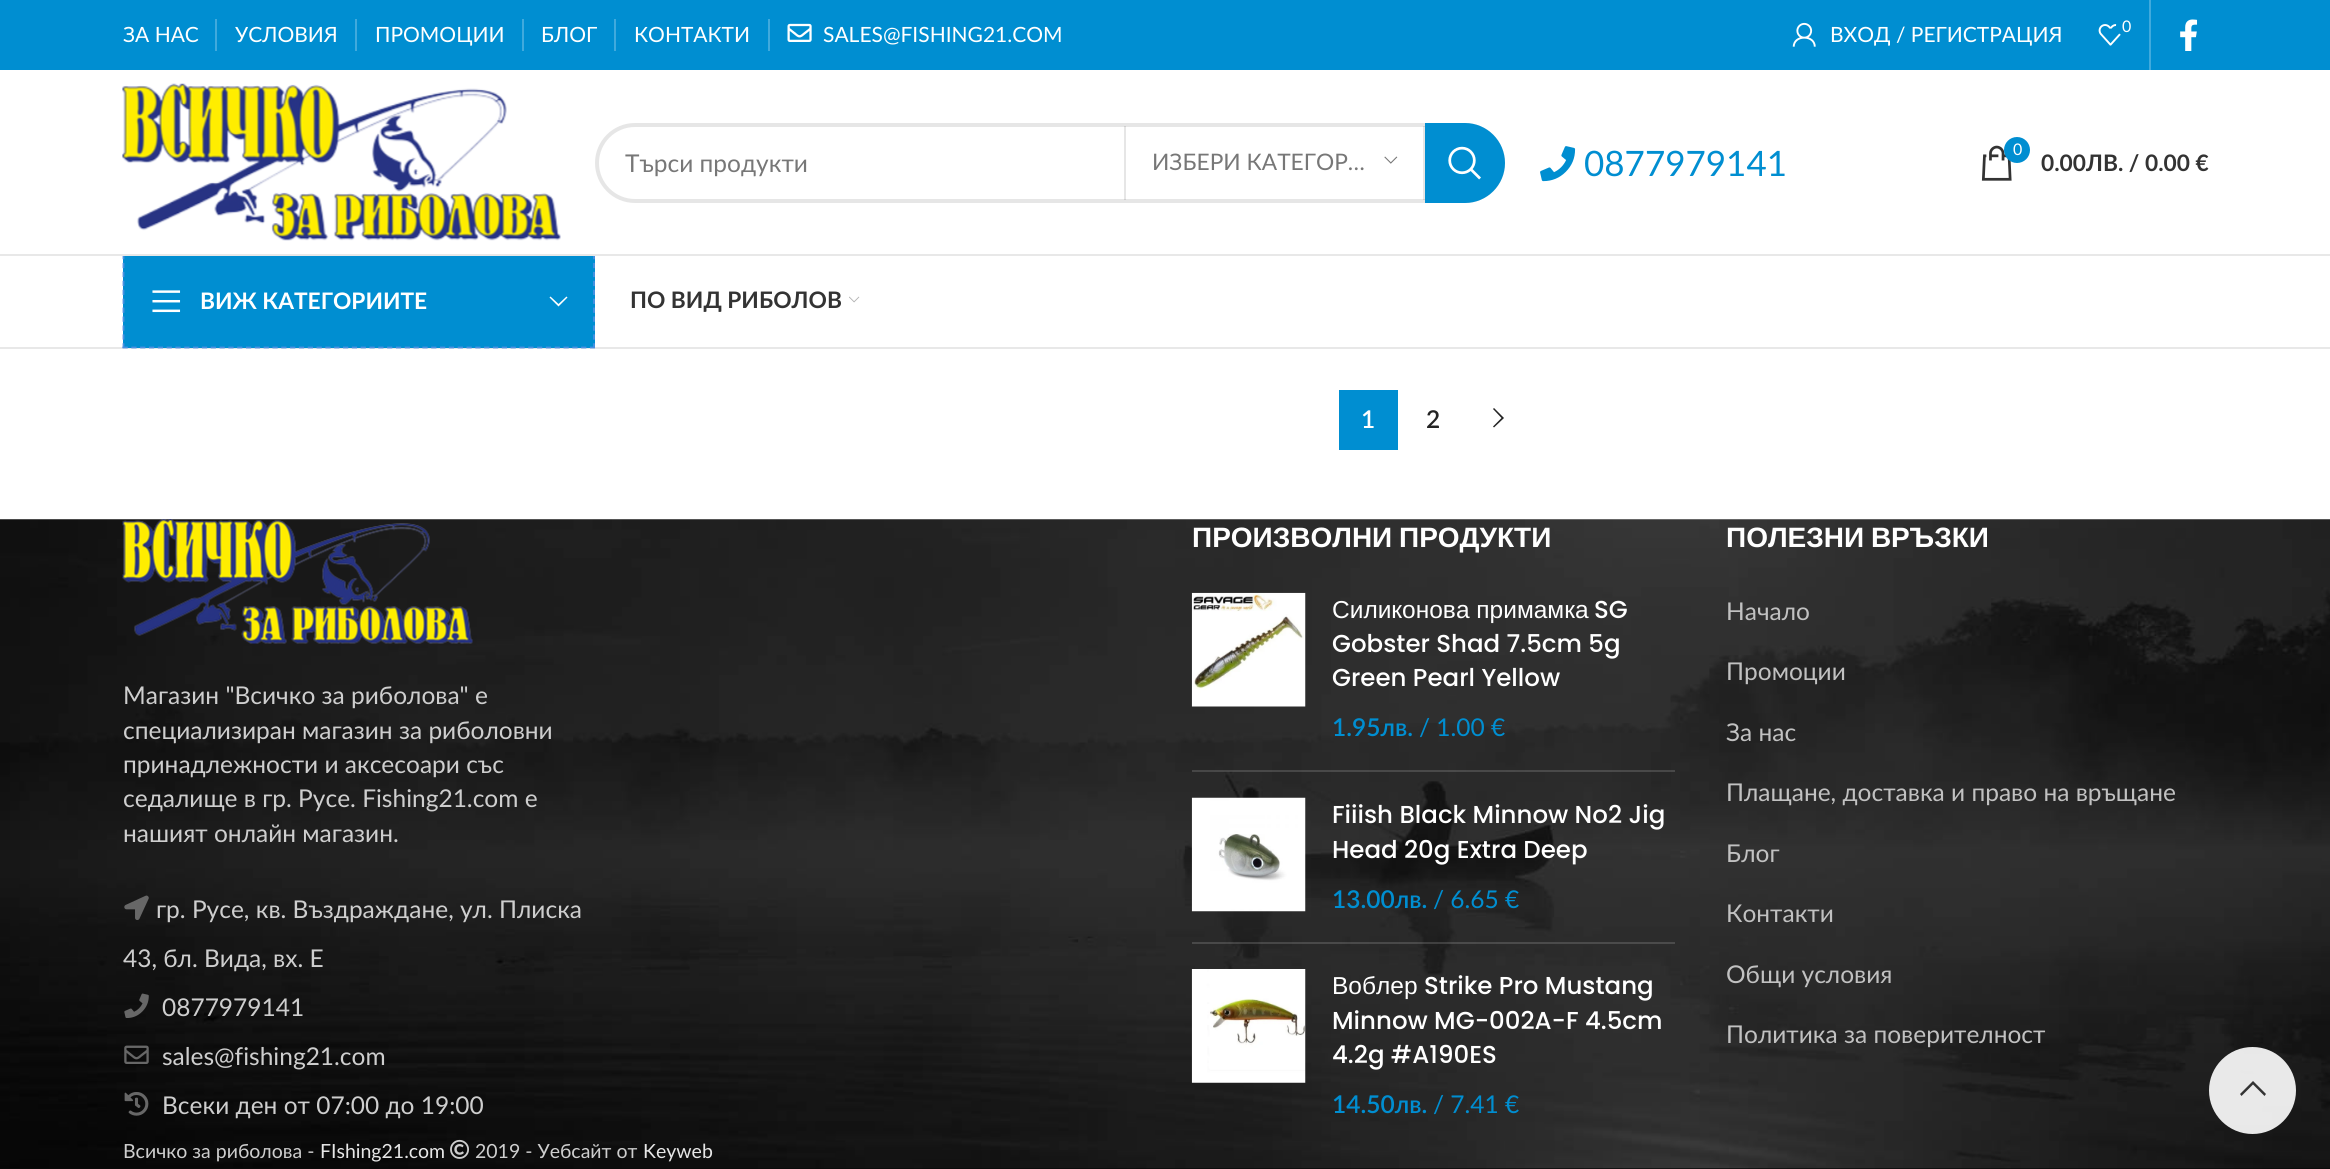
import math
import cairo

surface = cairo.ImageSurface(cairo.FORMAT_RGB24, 2330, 1169)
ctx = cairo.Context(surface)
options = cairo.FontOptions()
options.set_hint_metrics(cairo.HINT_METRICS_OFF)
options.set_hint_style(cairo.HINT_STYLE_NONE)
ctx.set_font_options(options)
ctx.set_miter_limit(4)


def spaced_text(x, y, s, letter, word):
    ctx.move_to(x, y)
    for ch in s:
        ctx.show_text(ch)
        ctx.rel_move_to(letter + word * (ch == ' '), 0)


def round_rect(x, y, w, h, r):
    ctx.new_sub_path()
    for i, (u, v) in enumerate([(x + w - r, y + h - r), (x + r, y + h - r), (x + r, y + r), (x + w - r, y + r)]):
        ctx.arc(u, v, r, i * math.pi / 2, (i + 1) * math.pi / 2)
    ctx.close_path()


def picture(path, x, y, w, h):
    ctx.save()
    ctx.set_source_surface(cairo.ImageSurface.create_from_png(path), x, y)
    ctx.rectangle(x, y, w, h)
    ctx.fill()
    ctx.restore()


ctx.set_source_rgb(1, 1, 1)
ctx.paint()
ctx.set_source_rgb(0, 0.557, 0.82)
ctx.rectangle(0, 0, 2330, 70)
ctx.fill()
ctx.select_font_face("Lato")
ctx.set_font_size(21)
ctx.set_source_rgb(1, 1, 1)
ctx.move_to(123, 42)
ctx.show_text("ЗА НАС")
ctx.set_source_rgb(0.251, 0.667, 0.867)
ctx.rectangle(215, 19, 2, 32)
ctx.fill()
ctx.set_source_rgb(1, 1, 1)
ctx.move_to(235, 42)
ctx.show_text("УСЛОВИЯ")
ctx.set_source_rgb(0.251, 0.667, 0.867)
ctx.rectangle(355, 19, 2, 32)
ctx.fill()
ctx.set_source_rgb(1, 1, 1)
ctx.move_to(375, 42)
ctx.show_text("ПРОМОЦИИ")
ctx.set_source_rgb(0.251, 0.667, 0.867)
ctx.rectangle(522, 19, 2, 32)
ctx.fill()
ctx.set_source_rgb(1, 1, 1)
ctx.move_to(541, 42)
ctx.show_text("БЛОГ")
ctx.set_source_rgb(0.251, 0.667, 0.867)
ctx.rectangle(614, 19, 2, 32)
ctx.fill()
ctx.set_source_rgb(1, 1, 1)
ctx.move_to(634, 42)
ctx.show_text("КОНТАКТИ")
ctx.set_source_rgb(0.251, 0.667, 0.867)
ctx.rectangle(768, 19, 2, 32)
ctx.fill()
picture("img1.png", 787, 23, 25, 19)
ctx.set_source_rgb(1, 1, 1)
ctx.move_to(823, 42)
ctx.show_text("SALES@FISHING21.COM")
picture("img2.png", 1792, 22, 24, 25)
ctx.move_to(1830, 42)
ctx.show_text("ВХОД / РЕГИСТРАЦИЯ")
picture("img3.png", 2098, 24, 23, 22)
ctx.set_source_rgb(0, 0.557, 0.82)
ctx.arc(2127.5, 25.5, 11.5, 0, 2 * math.pi)
ctx.fill()
ctx.set_font_size(16)
ctx.set_source_rgb(1, 1, 1)
ctx.move_to(2122, 32)
ctx.show_text("0")
ctx.set_source_rgb(0.251, 0.667, 0.867)
ctx.rectangle(2149, 0, 2, 70)
ctx.fill()
picture("img4.png", 2180, 19, 18, 32)
ctx.set_source_rgb(0.91, 0.91, 0.91)
ctx.rectangle(0, 347, 2330, 2)
ctx.fill()
ctx.set_source_rgb(0, 0.557, 0.82)
ctx.rectangle(123, 256, 472, 92)
ctx.fill()
ctx.new_path()
ctx.move_to(594, 254)
ctx.line_to(594, 348)
ctx.set_source_rgb(0.29, 0.565, 0.886)
ctx.set_line_width(1.8)
ctx.set_dash([5.25, 3.68])
ctx.stroke()
ctx.new_path()
ctx.move_to(122.5, 347.5)
ctx.line_to(595, 347.5)
ctx.set_dash([5.25, 3.57])
ctx.stroke()
ctx.new_path()
ctx.move_to(123.5, 254)
ctx.line_to(123.5, 348)
ctx.set_dash([5.25, 3.68])
ctx.stroke()
ctx.set_source_rgb(0.91, 0.91, 0.91)
ctx.rectangle(0, 254, 2330, 2)
ctx.fill()
picture("img5.png", 122, 83, 439, 158)
round_rect(597, 125, 906, 76, 38)
ctx.set_source_rgb(0.902, 0.902, 0.902)
ctx.set_line_width(4)
ctx.set_dash([])
ctx.stroke()
ctx.set_font_size(24.5)
ctx.set_source_rgb(0.467, 0.467, 0.467)
ctx.move_to(625, 172)
ctx.show_text("Търси продукти")
ctx.set_source_rgba(0, 0, 0, 0.1)
ctx.rectangle(1423, 126, 2, 74)
ctx.fill()
ctx.rectangle(1124, 126, 2, 74)
ctx.fill()
ctx.set_font_size(22.75)
ctx.set_source_rgb(0.467, 0.467, 0.467)
ctx.move_to(1152, 170)
ctx.show_text("ИЗБЕРИ КАТЕГОР…")
picture("img6.png", 1384, 156, 14, 8)
ctx.set_source_rgb(0, 0.557, 0.82)
ctx.new_path()
ctx.move_to(1425, 123)
ctx.line_to(1465, 123)
ctx.curve_to(1487, 123, 1505, 141, 1505, 163)
ctx.curve_to(1505, 185, 1487, 203, 1465, 203)
ctx.line_to(1425, 203)
ctx.close_path()
ctx.fill()
picture("img7.png", 1448, 146, 33, 34)
picture("img8.png", 1540, 146, 36, 36)
ctx.set_font_size(35)
ctx.move_to(1584, 176)
ctx.show_text("0877979141")
picture("img9.png", 1981, 145, 31, 36)
ctx.arc(2017, 150, 13, 0, 2 * math.pi)
ctx.fill()
ctx.set_font_size(16)
ctx.set_source_rgb(1, 1, 1)
ctx.move_to(2013, 155)
ctx.show_text("0")
ctx.select_font_face("Lato", cairo.FONT_SLANT_NORMAL, cairo.FONT_WEIGHT_BOLD)
ctx.set_font_size(22.75)
ctx.set_source_rgb(0.2, 0.2, 0.2)
ctx.move_to(2041, 171)
ctx.show_text("0.00ЛВ. / 0.00 €")
picture("img10.png", 152, 290, 29, 23)
ctx.set_source_rgb(1, 1, 1)
ctx.move_to(200, 309)
ctx.show_text("ВИЖ КАТЕГОРИИТЕ")
ctx.new_path()
ctx.move_to(566.5, 296.5)
ctx.line_to(558.5, 304)
ctx.line_to(550.5, 296.5)
ctx.line_to(549.5, 297.5)
ctx.line_to(558.5, 306.5)
ctx.line_to(567.5, 297.5)
ctx.close_path()
ctx.fill()
ctx.set_source_rgb(0.2, 0.2, 0.2)
ctx.move_to(630, 308)
ctx.show_text("ПО ВИД РИБОЛОВ")
picture("img11.png", 849, 296, 11, 7)
ctx.set_source_rgb(0, 0.557, 0.82)
ctx.rectangle(1339, 390, 59, 60)
ctx.fill()
ctx.select_font_face("Lato SemiBold")
ctx.set_font_size(24.5)
ctx.set_source_rgb(1, 1, 1)
ctx.move_to(1361, 428)
ctx.show_text("1")
ctx.set_source_rgb(0.141, 0.141, 0.141)
ctx.move_to(1426, 428)
ctx.show_text("2")
ctx.new_path()
ctx.move_to(1493, 409)
ctx.line_to(1501.5, 418)
ctx.line_to(1493, 426.5)
ctx.line_to(1494, 427.5)
ctx.line_to(1504, 418)
ctx.line_to(1494, 408)
ctx.close_path()
ctx.fill()
ctx.set_source_rgb(0.039, 0.039, 0.039)
ctx.rectangle(0, 1168, 2330, 1)
ctx.fill()
picture("img12.png", 0, 519, 2330, 650)
picture("img13.png", 122, 519, 351, 125)
ctx.select_font_face("Lato")
ctx.set_source_rgb(0.808, 0.808, 0.808)
ctx.move_to(123, 704)
ctx.show_text("Магазин \"Всичко за риболова\" е")
ctx.move_to(123, 739)
ctx.show_text("специализиран магазин за риболовни")
ctx.move_to(123, 773)
ctx.show_text("принадлежности и аксесоари със")
ctx.move_to(123, 807)
ctx.show_text("седалище в гр. Русе. Fishing21.com е")
ctx.move_to(123, 842)
ctx.show_text("нашият онлайн магазин.")
picture("img14.png", 124, 895, 25, 25)
ctx.move_to(156, 918)
ctx.show_text("гр. Русе, кв. Въздраждане, ул. Плиска")
ctx.move_to(123, 967)
ctx.show_text("43, бл. Вида, вх. Е")
picture("img15.png", 124, 993, 25, 25)
ctx.move_to(162, 1016)
ctx.show_text("0877979141")
picture("img16.png", 124, 1045, 25, 19)
ctx.move_to(162, 1065)
ctx.show_text("sales@fishing21.com")
picture("img17.png", 124, 1092, 25, 24)
ctx.move_to(162, 1114)
ctx.show_text("Всеки ден от 07:00 до 19:00")
ctx.select_font_face("Liberation Sans", cairo.FONT_SLANT_NORMAL, cairo.FONT_WEIGHT_BOLD)
ctx.set_font_size(28)
ctx.set_source_rgb(1, 1, 1)
spaced_text(1192, 547, "ПРОИЗВОЛНИ ПРОДУКТИ", 0, -1)
ctx.set_source_rgba(1, 1, 1, 0.15)
ctx.rectangle(1192, 770, 483, 2)
ctx.fill()
picture("img18.png", 1191, 592, 115, 115)
ctx.select_font_face("Liberation Sans")
ctx.set_font_size(24.5)
ctx.set_source_rgb(1, 1, 1)
ctx.move_to(1332, 618)
ctx.show_text("Силиконова примамка")
ctx.select_font_face("Poppins Medium")
ctx.move_to(1594, 618)
ctx.show_text("SG")
ctx.move_to(1332, 652)
ctx.show_text("Gobster Shad 7.5cm 5g")
ctx.move_to(1332, 686)
ctx.show_text("Green Pearl Yellow")
ctx.select_font_face("Lato SemiBold")
ctx.set_source_rgb(0, 0.557, 0.82)
ctx.move_to(1332, 736)
ctx.show_text("1.95лв.")
ctx.select_font_face("Lato")
ctx.move_to(1419, 736)
ctx.show_text("/ 1.00 €")
ctx.set_source_rgba(1, 1, 1, 0.15)
ctx.rectangle(1192, 942, 483, 2)
ctx.fill()
picture("img19.png", 1191, 797, 115, 115)
ctx.select_font_face("Poppins Medium")
ctx.set_source_rgb(1, 1, 1)
ctx.move_to(1332, 823)
ctx.show_text("Fiiish Black Minnow No2 Jig")
ctx.move_to(1332, 858)
ctx.show_text("Head 20g Extra Deep")
ctx.select_font_face("Lato SemiBold")
ctx.set_source_rgb(0, 0.557, 0.82)
ctx.move_to(1332, 908)
ctx.show_text("13.00лв.")
ctx.select_font_face("Lato")
ctx.move_to(1433, 908)
ctx.show_text("/ 6.65 €")
picture("img20.png", 1191, 969, 115, 114)
ctx.select_font_face("Liberation Sans")
ctx.set_source_rgb(1, 1, 1)
ctx.move_to(1332, 994)
ctx.show_text("Воблер")
ctx.select_font_face("Poppins Medium")
ctx.move_to(1424, 994)
ctx.show_text("Strike Pro Mustang")
ctx.move_to(1332, 1029)
ctx.show_text("Minnow MG-002A-F 4.5cm")
ctx.move_to(1332, 1063)
ctx.show_text("4.2g #A190ES")
ctx.select_font_face("Lato SemiBold")
ctx.set_source_rgb(0, 0.557, 0.82)
ctx.move_to(1332, 1113)
ctx.show_text("14.50лв.")
ctx.select_font_face("Lato")
ctx.move_to(1433, 1113)
ctx.show_text("/ 7.41 €")
ctx.select_font_face("Liberation Sans", cairo.FONT_SLANT_NORMAL, cairo.FONT_WEIGHT_BOLD)
ctx.set_font_size(28)
ctx.set_source_rgb(1, 1, 1)
spaced_text(1726, 547, "ПОЛЕЗНИ ВРЪЗКИ", 0, -1)
ctx.select_font_face("Lato")
ctx.set_font_size(24.5)
ctx.set_source_rgb(0.757, 0.757, 0.757)
ctx.move_to(1726, 620)
ctx.show_text("Начало")
ctx.move_to(1726, 680)
ctx.show_text("Промоции")
ctx.move_to(1726, 741)
ctx.show_text("За нас")
ctx.move_to(1726, 801)
ctx.show_text("Плащане, доставка и право на връщане")
ctx.move_to(1726, 862)
ctx.show_text("Блог")
ctx.move_to(1726, 922)
ctx.show_text("Контакти")
ctx.move_to(1726, 983)
ctx.show_text("Общи условия")
ctx.move_to(1726, 1043)
ctx.show_text("Политика за поверителност")
ctx.set_font_size(19.5)
ctx.set_source_rgb(0.808, 0.808, 0.808)
ctx.move_to(123, 1158)
ctx.show_text("Всичко за риболова -")
ctx.set_source_rgb(0.906, 0.906, 0.906)
ctx.move_to(320, 1158)
ctx.show_text("FIshing21.com")
picture("img21.png", 450, 1139, 19, 20)
ctx.set_source_rgb(0.808, 0.808, 0.808)
ctx.move_to(475, 1158)
ctx.show_text("2019 - Уебсайт от")
ctx.set_source_rgb(0.906, 0.906, 0.906)
ctx.move_to(643, 1158)
ctx.show_text("Keyweb")
ctx.set_source_rgba(1, 1, 1, 0.9)
ctx.new_path()
ctx.arc(2252.5, 1090.5, 43.5, 0, 2 * math.pi)
ctx.fill()
ctx.set_source_rgb(0.2, 0.2, 0.2)
ctx.new_path()
ctx.move_to(2264.5, 1096)
ctx.line_to(2266, 1094)
ctx.line_to(2253, 1081)
ctx.line_to(2240, 1094)
ctx.line_to(2241.5, 1096)
ctx.line_to(2253, 1084.5)
ctx.close_path()
ctx.fill()
surface.write_to_png("page.png")
